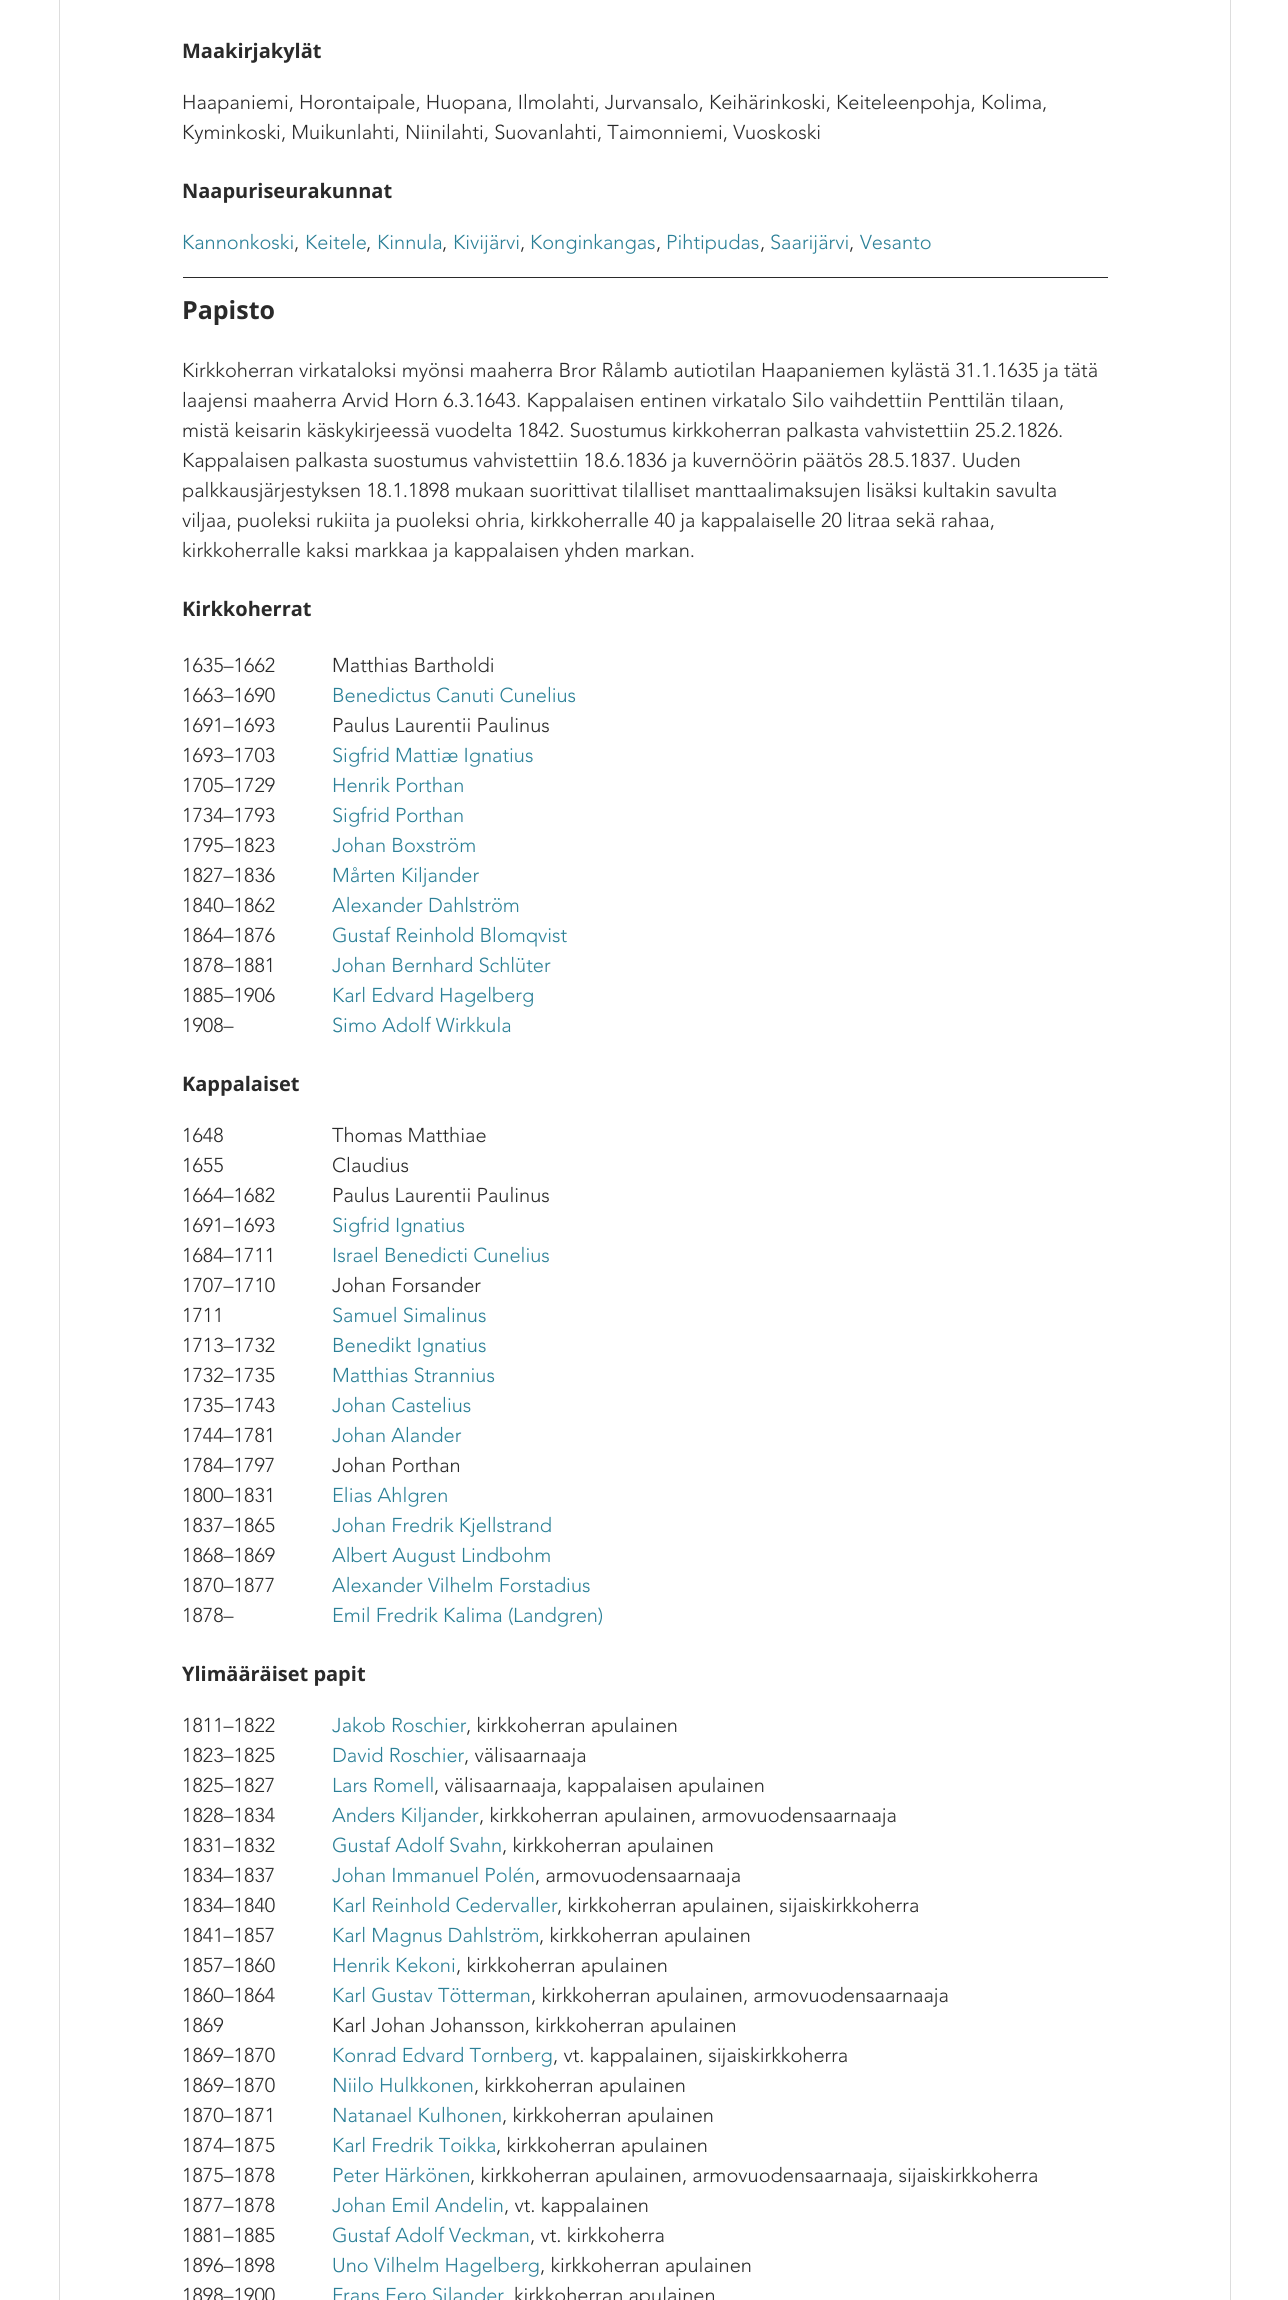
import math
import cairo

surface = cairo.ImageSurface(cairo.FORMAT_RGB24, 1288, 2300)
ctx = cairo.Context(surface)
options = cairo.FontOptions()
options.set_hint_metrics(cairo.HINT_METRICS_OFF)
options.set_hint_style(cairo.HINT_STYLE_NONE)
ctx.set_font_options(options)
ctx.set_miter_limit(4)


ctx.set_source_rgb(1, 1, 1)
ctx.paint()
ctx.rectangle(59.5, -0.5, 1171, 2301)
ctx.set_source_rgb(0.867, 0.867, 0.867)
ctx.set_line_width(1)
ctx.stroke()
ctx.select_font_face("Open Sans", cairo.FONT_SLANT_NORMAL, cairo.FONT_WEIGHT_BOLD)
ctx.set_font_size(20)
ctx.set_source_rgb(0.165, 0.165, 0.165)
ctx.move_to(182, 58)
ctx.show_text("Maakirjakylät")
ctx.select_font_face("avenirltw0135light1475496 Light")
ctx.move_to(182, 109)
ctx.show_text("Haapaniemi, Horontaipale, Huopana, Ilmolahti, Jurvansalo, Keihärinkoski, Keiteleenpohja, Kolima,")
ctx.move_to(182, 139)
ctx.show_text("Kyminkoski, Muikunlahti, Niinilahti, Suovanlahti, Taimonniemi, Vuoskoski")
ctx.select_font_face("Open Sans", cairo.FONT_SLANT_NORMAL, cairo.FONT_WEIGHT_BOLD)
ctx.move_to(182, 198)
ctx.show_text("Naapuriseurakunnat")
ctx.select_font_face("avenirltw0135light1475496 Light")
ctx.set_source_rgb(0.169, 0.502, 0.592)
ctx.move_to(182, 249)
ctx.show_text("Kannonkoski")
ctx.set_source_rgb(0.165, 0.165, 0.165)
ctx.move_to(294, 249)
ctx.show_text(",")
ctx.set_source_rgb(0.169, 0.502, 0.592)
ctx.move_to(305, 249)
ctx.show_text("Keitele")
ctx.set_source_rgb(0.165, 0.165, 0.165)
ctx.move_to(366, 249)
ctx.show_text(",")
ctx.set_source_rgb(0.169, 0.502, 0.592)
ctx.move_to(377, 249)
ctx.show_text("Kinnula")
ctx.set_source_rgb(0.165, 0.165, 0.165)
ctx.move_to(442, 249)
ctx.show_text(",")
ctx.set_source_rgb(0.169, 0.502, 0.592)
ctx.move_to(453, 249)
ctx.show_text("Kivijärvi")
ctx.set_source_rgb(0.165, 0.165, 0.165)
ctx.move_to(520, 249)
ctx.show_text(",")
ctx.set_source_rgb(0.169, 0.502, 0.592)
ctx.move_to(530, 249)
ctx.show_text("Konginkangas")
ctx.set_source_rgb(0.165, 0.165, 0.165)
ctx.move_to(656, 249)
ctx.show_text(",")
ctx.set_source_rgb(0.169, 0.502, 0.592)
ctx.move_to(666, 249)
ctx.show_text("Pihtipudas")
ctx.set_source_rgb(0.165, 0.165, 0.165)
ctx.move_to(760, 249)
ctx.show_text(",")
ctx.set_source_rgb(0.169, 0.502, 0.592)
ctx.move_to(770, 249)
ctx.show_text("Saarijärvi")
ctx.set_source_rgb(0.165, 0.165, 0.165)
ctx.move_to(849, 249)
ctx.show_text(",")
ctx.set_source_rgb(0.169, 0.502, 0.592)
ctx.move_to(860, 249)
ctx.show_text("Vesanto")
ctx.set_source_rgb(0.165, 0.165, 0.165)
ctx.rectangle(183, 277, 925, 1)
ctx.fill()
ctx.select_font_face("Open Sans", cairo.FONT_SLANT_NORMAL, cairo.FONT_WEIGHT_BOLD)
ctx.set_font_size(25)
ctx.move_to(182, 319)
ctx.show_text("Papisto")
ctx.select_font_face("avenirltw0135light1475496 Light")
ctx.set_font_size(20)
ctx.move_to(182, 377)
ctx.show_text("Kirkkoherran virkataloksi myönsi maaherra Bror Rålamb autiotilan Haapaniemen kylästä 31.1.1635 ja tätä")
ctx.move_to(182, 407)
ctx.show_text("laajensi maaherra Arvid Horn 6.3.1643. Kappalaisen entinen virkatalo Silo vaihdettiin Penttilän tilaan,")
ctx.move_to(182, 437)
ctx.show_text("mistä keisarin käskykirjeessä vuodelta 1842. Suostumus kirkkoherran palkasta vahvistettiin 25.2.1826.")
ctx.move_to(182, 467)
ctx.show_text("Kappalaisen palkasta suostumus vahvistettiin 18.6.1836 ja kuvernöörin päätös 28.5.1837. Uuden")
ctx.move_to(182, 497)
ctx.show_text("palkkausjärjestyksen 18.1.1898 mukaan suorittivat tilalliset manttaalimaksujen lisäksi kultakin savulta")
ctx.move_to(182, 527)
ctx.show_text("viljaa, puoleksi rukiita ja puoleksi ohria, kirkkoherralle 40 ja kappalaiselle 20 litraa sekä rahaa,")
ctx.move_to(182, 557)
ctx.show_text("kirkkoherralle kaksi markkaa ja kappalaisen yhden markan.")
ctx.select_font_face("Open Sans", cairo.FONT_SLANT_NORMAL, cairo.FONT_WEIGHT_BOLD)
ctx.move_to(182, 616)
ctx.show_text("Kirkkoherrat")
ctx.select_font_face("avenirltw0135light1475496 Light")
ctx.move_to(182, 672)
ctx.show_text("1635–1662")
ctx.move_to(332, 672)
ctx.show_text("Matthias Bartholdi")
ctx.move_to(182, 702)
ctx.show_text("1663–1690")
ctx.set_source_rgb(0.169, 0.502, 0.592)
ctx.move_to(332, 702)
ctx.show_text("Benedictus Canuti Cunelius")
ctx.set_source_rgb(0.165, 0.165, 0.165)
ctx.move_to(182, 732)
ctx.show_text("1691–1693")
ctx.move_to(332, 732)
ctx.show_text("Paulus Laurentii Paulinus")
ctx.move_to(182, 762)
ctx.show_text("1693–1703")
ctx.set_source_rgb(0.169, 0.502, 0.592)
ctx.move_to(332, 762)
ctx.show_text("Sigfrid Mattiæ Ignatius")
ctx.set_source_rgb(0.165, 0.165, 0.165)
ctx.move_to(182, 792)
ctx.show_text("1705–1729")
ctx.set_source_rgb(0.169, 0.502, 0.592)
ctx.move_to(332, 792)
ctx.show_text("Henrik Porthan")
ctx.set_source_rgb(0.165, 0.165, 0.165)
ctx.move_to(182, 822)
ctx.show_text("1734–1793")
ctx.set_source_rgb(0.169, 0.502, 0.592)
ctx.move_to(332, 822)
ctx.show_text("Sigfrid Porthan")
ctx.set_source_rgb(0.165, 0.165, 0.165)
ctx.move_to(182, 852)
ctx.show_text("1795–1823")
ctx.set_source_rgb(0.169, 0.502, 0.592)
ctx.move_to(332, 852)
ctx.show_text("Johan Boxström")
ctx.set_source_rgb(0.165, 0.165, 0.165)
ctx.move_to(182, 882)
ctx.show_text("1827–1836")
ctx.set_source_rgb(0.169, 0.502, 0.592)
ctx.move_to(332, 882)
ctx.show_text("Mårten Kiljander")
ctx.set_source_rgb(0.165, 0.165, 0.165)
ctx.move_to(182, 912)
ctx.show_text("1840–1862")
ctx.set_source_rgb(0.169, 0.502, 0.592)
ctx.move_to(332, 912)
ctx.show_text("Alexander Dahlström")
ctx.set_source_rgb(0.165, 0.165, 0.165)
ctx.move_to(182, 942)
ctx.show_text("1864–1876")
ctx.set_source_rgb(0.169, 0.502, 0.592)
ctx.move_to(332, 942)
ctx.show_text("Gustaf Reinhold Blomqvist")
ctx.set_source_rgb(0.165, 0.165, 0.165)
ctx.move_to(182, 972)
ctx.show_text("1878–1881")
ctx.set_source_rgb(0.169, 0.502, 0.592)
ctx.move_to(332, 972)
ctx.show_text("Johan Bernhard Schlüter")
ctx.set_source_rgb(0.165, 0.165, 0.165)
ctx.move_to(182, 1002)
ctx.show_text("1885–1906")
ctx.set_source_rgb(0.169, 0.502, 0.592)
ctx.move_to(332, 1002)
ctx.show_text("Karl Edvard Hagelberg")
ctx.set_source_rgb(0.165, 0.165, 0.165)
ctx.move_to(182, 1032)
ctx.show_text("1908–")
ctx.set_source_rgb(0.169, 0.502, 0.592)
ctx.move_to(332, 1032)
ctx.show_text("Simo Adolf Wirkkula")
ctx.select_font_face("Open Sans", cairo.FONT_SLANT_NORMAL, cairo.FONT_WEIGHT_BOLD)
ctx.set_source_rgb(0.165, 0.165, 0.165)
ctx.move_to(182, 1091)
ctx.show_text("Kappalaiset")
ctx.select_font_face("avenirltw0135light1475496 Light")
ctx.move_to(182, 1142)
ctx.show_text("1648")
ctx.move_to(332, 1142)
ctx.show_text("Thomas Matthiae")
ctx.move_to(182, 1172)
ctx.show_text("1655")
ctx.move_to(332, 1172)
ctx.show_text("Claudius")
ctx.move_to(182, 1202)
ctx.show_text("1664–1682")
ctx.move_to(332, 1202)
ctx.show_text("Paulus Laurentii Paulinus")
ctx.move_to(182, 1232)
ctx.show_text("1691–1693")
ctx.set_source_rgb(0.169, 0.502, 0.592)
ctx.move_to(332, 1232)
ctx.show_text("Sigfrid Ignatius")
ctx.set_source_rgb(0.165, 0.165, 0.165)
ctx.move_to(182, 1262)
ctx.show_text("1684–1711")
ctx.set_source_rgb(0.169, 0.502, 0.592)
ctx.move_to(332, 1262)
ctx.show_text("Israel Benedicti Cunelius")
ctx.set_source_rgb(0.165, 0.165, 0.165)
ctx.move_to(182, 1292)
ctx.show_text("1707–1710")
ctx.move_to(332, 1292)
ctx.show_text("Johan Forsander")
ctx.move_to(182, 1322)
ctx.show_text("1711")
ctx.set_source_rgb(0.169, 0.502, 0.592)
ctx.move_to(332, 1322)
ctx.show_text("Samuel Simalinus")
ctx.set_source_rgb(0.165, 0.165, 0.165)
ctx.move_to(182, 1352)
ctx.show_text("1713–1732")
ctx.set_source_rgb(0.169, 0.502, 0.592)
ctx.move_to(332, 1352)
ctx.show_text("Benedikt Ignatius")
ctx.set_source_rgb(0.165, 0.165, 0.165)
ctx.move_to(182, 1382)
ctx.show_text("1732–1735")
ctx.set_source_rgb(0.169, 0.502, 0.592)
ctx.move_to(332, 1382)
ctx.show_text("Matthias Strannius")
ctx.set_source_rgb(0.165, 0.165, 0.165)
ctx.move_to(182, 1412)
ctx.show_text("1735–1743")
ctx.set_source_rgb(0.169, 0.502, 0.592)
ctx.move_to(332, 1412)
ctx.show_text("Johan Castelius")
ctx.set_source_rgb(0.165, 0.165, 0.165)
ctx.move_to(182, 1442)
ctx.show_text("1744–1781")
ctx.set_source_rgb(0.169, 0.502, 0.592)
ctx.move_to(332, 1442)
ctx.show_text("Johan Alander")
ctx.set_source_rgb(0.165, 0.165, 0.165)
ctx.move_to(182, 1472)
ctx.show_text("1784–1797")
ctx.move_to(332, 1472)
ctx.show_text("Johan Porthan")
ctx.move_to(182, 1502)
ctx.show_text("1800–1831")
ctx.set_source_rgb(0.169, 0.502, 0.592)
ctx.move_to(332, 1502)
ctx.show_text("Elias Ahlgren")
ctx.set_source_rgb(0.165, 0.165, 0.165)
ctx.move_to(182, 1532)
ctx.show_text("1837–1865")
ctx.set_source_rgb(0.169, 0.502, 0.592)
ctx.move_to(332, 1532)
ctx.show_text("Johan Fredrik Kjellstrand")
ctx.set_source_rgb(0.165, 0.165, 0.165)
ctx.move_to(182, 1562)
ctx.show_text("1868–1869")
ctx.set_source_rgb(0.169, 0.502, 0.592)
ctx.move_to(332, 1562)
ctx.show_text("Albert August Lindbohm")
ctx.set_source_rgb(0.165, 0.165, 0.165)
ctx.move_to(182, 1592)
ctx.show_text("1870–1877")
ctx.set_source_rgb(0.169, 0.502, 0.592)
ctx.move_to(332, 1592)
ctx.show_text("Alexander Vilhelm Forstadius")
ctx.set_source_rgb(0.165, 0.165, 0.165)
ctx.move_to(182, 1622)
ctx.show_text("1878–")
ctx.set_source_rgb(0.169, 0.502, 0.592)
ctx.move_to(332, 1622)
ctx.show_text("Emil Fredrik Kalima (Landgren)")
ctx.select_font_face("Open Sans", cairo.FONT_SLANT_NORMAL, cairo.FONT_WEIGHT_BOLD)
ctx.set_source_rgb(0.165, 0.165, 0.165)
ctx.move_to(182, 1681)
ctx.show_text("Ylimääräiset papit")
ctx.select_font_face("avenirltw0135light1475496 Light")
ctx.move_to(182, 1732)
ctx.show_text("1811–1822")
ctx.set_source_rgb(0.169, 0.502, 0.592)
ctx.move_to(332, 1732)
ctx.show_text("Jakob Roschier")
ctx.set_source_rgb(0.165, 0.165, 0.165)
ctx.move_to(466, 1732)
ctx.show_text(", kirkkoherran apulainen")
ctx.move_to(182, 1762)
ctx.show_text("1823–1825")
ctx.set_source_rgb(0.169, 0.502, 0.592)
ctx.move_to(332, 1762)
ctx.show_text("David Roschier")
ctx.set_source_rgb(0.165, 0.165, 0.165)
ctx.move_to(464, 1762)
ctx.show_text(", välisaarnaaja")
ctx.move_to(182, 1792)
ctx.show_text("1825–1827")
ctx.set_source_rgb(0.169, 0.502, 0.592)
ctx.move_to(332, 1792)
ctx.show_text("Lars Romell")
ctx.set_source_rgb(0.165, 0.165, 0.165)
ctx.move_to(434, 1792)
ctx.show_text(", välisaarnaaja, kappalaisen apulainen")
ctx.move_to(182, 1822)
ctx.show_text("1828–1834")
ctx.set_source_rgb(0.169, 0.502, 0.592)
ctx.move_to(332, 1822)
ctx.show_text("Anders Kiljander")
ctx.set_source_rgb(0.165, 0.165, 0.165)
ctx.move_to(479, 1822)
ctx.show_text(", kirkkoherran apulainen, armovuodensaarnaaja")
ctx.move_to(182, 1852)
ctx.show_text("1831–1832")
ctx.set_source_rgb(0.169, 0.502, 0.592)
ctx.move_to(332, 1852)
ctx.show_text("Gustaf Adolf Svahn")
ctx.set_source_rgb(0.165, 0.165, 0.165)
ctx.move_to(502, 1852)
ctx.show_text(", kirkkoherran apulainen")
ctx.move_to(182, 1882)
ctx.show_text("1834–1837")
ctx.set_source_rgb(0.169, 0.502, 0.592)
ctx.move_to(332, 1882)
ctx.show_text("Johan Immanuel Polén")
ctx.set_source_rgb(0.165, 0.165, 0.165)
ctx.move_to(535, 1882)
ctx.show_text(", armovuodensaarnaaja")
ctx.move_to(182, 1912)
ctx.show_text("1834–1840")
ctx.set_source_rgb(0.169, 0.502, 0.592)
ctx.move_to(332, 1912)
ctx.show_text("Karl Reinhold Cedervaller")
ctx.set_source_rgb(0.165, 0.165, 0.165)
ctx.move_to(557, 1912)
ctx.show_text(", kirkkoherran apulainen, sijaiskirkkoherra")
ctx.move_to(182, 1942)
ctx.show_text("1841–1857")
ctx.set_source_rgb(0.169, 0.502, 0.592)
ctx.move_to(332, 1942)
ctx.show_text("Karl Magnus Dahlström")
ctx.set_source_rgb(0.165, 0.165, 0.165)
ctx.move_to(539, 1942)
ctx.show_text(", kirkkoherran apulainen")
ctx.move_to(182, 1972)
ctx.show_text("1857–1860")
ctx.set_source_rgb(0.169, 0.502, 0.592)
ctx.move_to(332, 1972)
ctx.show_text("Henrik Kekoni")
ctx.set_source_rgb(0.165, 0.165, 0.165)
ctx.move_to(456, 1972)
ctx.show_text(", kirkkoherran apulainen")
ctx.move_to(182, 2002)
ctx.show_text("1860–1864")
ctx.set_source_rgb(0.169, 0.502, 0.592)
ctx.move_to(332, 2002)
ctx.show_text("Karl Gustav Tötterman")
ctx.set_source_rgb(0.165, 0.165, 0.165)
ctx.move_to(531, 2002)
ctx.show_text(", kirkkoherran apulainen, armovuodensaarnaaja")
ctx.move_to(182, 2032)
ctx.show_text("1869")
ctx.move_to(332, 2032)
ctx.show_text("Karl Johan Johansson, kirkkoherran apulainen")
ctx.move_to(182, 2062)
ctx.show_text("1869–1870")
ctx.set_source_rgb(0.169, 0.502, 0.592)
ctx.move_to(332, 2062)
ctx.show_text("Konrad Edvard Tornberg")
ctx.set_source_rgb(0.165, 0.165, 0.165)
ctx.move_to(553, 2062)
ctx.show_text(", vt. kappalainen, sijaiskirkkoherra")
ctx.move_to(182, 2092)
ctx.show_text("1869–1870")
ctx.set_source_rgb(0.169, 0.502, 0.592)
ctx.move_to(332, 2092)
ctx.show_text("Niilo Hulkkonen")
ctx.set_source_rgb(0.165, 0.165, 0.165)
ctx.move_to(474, 2092)
ctx.show_text(", kirkkoherran apulainen")
ctx.move_to(182, 2122)
ctx.show_text("1870–1871")
ctx.set_source_rgb(0.169, 0.502, 0.592)
ctx.move_to(332, 2122)
ctx.show_text("Natanael Kulhonen")
ctx.set_source_rgb(0.165, 0.165, 0.165)
ctx.move_to(502, 2122)
ctx.show_text(", kirkkoherran apulainen")
ctx.move_to(182, 2152)
ctx.show_text("1874–1875")
ctx.set_source_rgb(0.169, 0.502, 0.592)
ctx.move_to(332, 2152)
ctx.show_text("Karl Fredrik Toikka")
ctx.set_source_rgb(0.165, 0.165, 0.165)
ctx.move_to(496, 2152)
ctx.show_text(", kirkkoherran apulainen")
ctx.move_to(182, 2182)
ctx.show_text("1875–1878")
ctx.set_source_rgb(0.169, 0.502, 0.592)
ctx.move_to(332, 2182)
ctx.show_text("Peter Härkönen")
ctx.set_source_rgb(0.165, 0.165, 0.165)
ctx.move_to(470, 2182)
ctx.show_text(", kirkkoherran apulainen, armovuodensaarnaaja, sijaiskirkkoherra")
ctx.move_to(182, 2212)
ctx.show_text("1877–1878")
ctx.set_source_rgb(0.169, 0.502, 0.592)
ctx.move_to(332, 2212)
ctx.show_text("Johan Emil Andelin")
ctx.set_source_rgb(0.165, 0.165, 0.165)
ctx.move_to(504, 2212)
ctx.show_text(", vt. kappalainen")
ctx.move_to(182, 2242)
ctx.show_text("1881–1885")
ctx.set_source_rgb(0.169, 0.502, 0.592)
ctx.move_to(332, 2242)
ctx.show_text("Gustaf Adolf Veckman")
ctx.set_source_rgb(0.165, 0.165, 0.165)
ctx.move_to(530, 2242)
ctx.show_text(", vt. kirkkoherra")
ctx.move_to(182, 2272)
ctx.show_text("1896–1898")
ctx.set_source_rgb(0.169, 0.502, 0.592)
ctx.move_to(332, 2272)
ctx.show_text("Uno Vilhelm Hagelberg")
ctx.set_source_rgb(0.165, 0.165, 0.165)
ctx.move_to(540, 2272)
ctx.show_text(", kirkkoherran apulainen")
ctx.move_to(182, 2302)
ctx.show_text("1898–1900")
ctx.set_source_rgb(0.169, 0.502, 0.592)
ctx.move_to(332, 2302)
ctx.show_text("Frans Eero Silander")
ctx.set_source_rgb(0.165, 0.165, 0.165)
ctx.move_to(514, 2302)
ctx.show_text("kirkkoherran apulainen")
surface.write_to_png("page.png")
